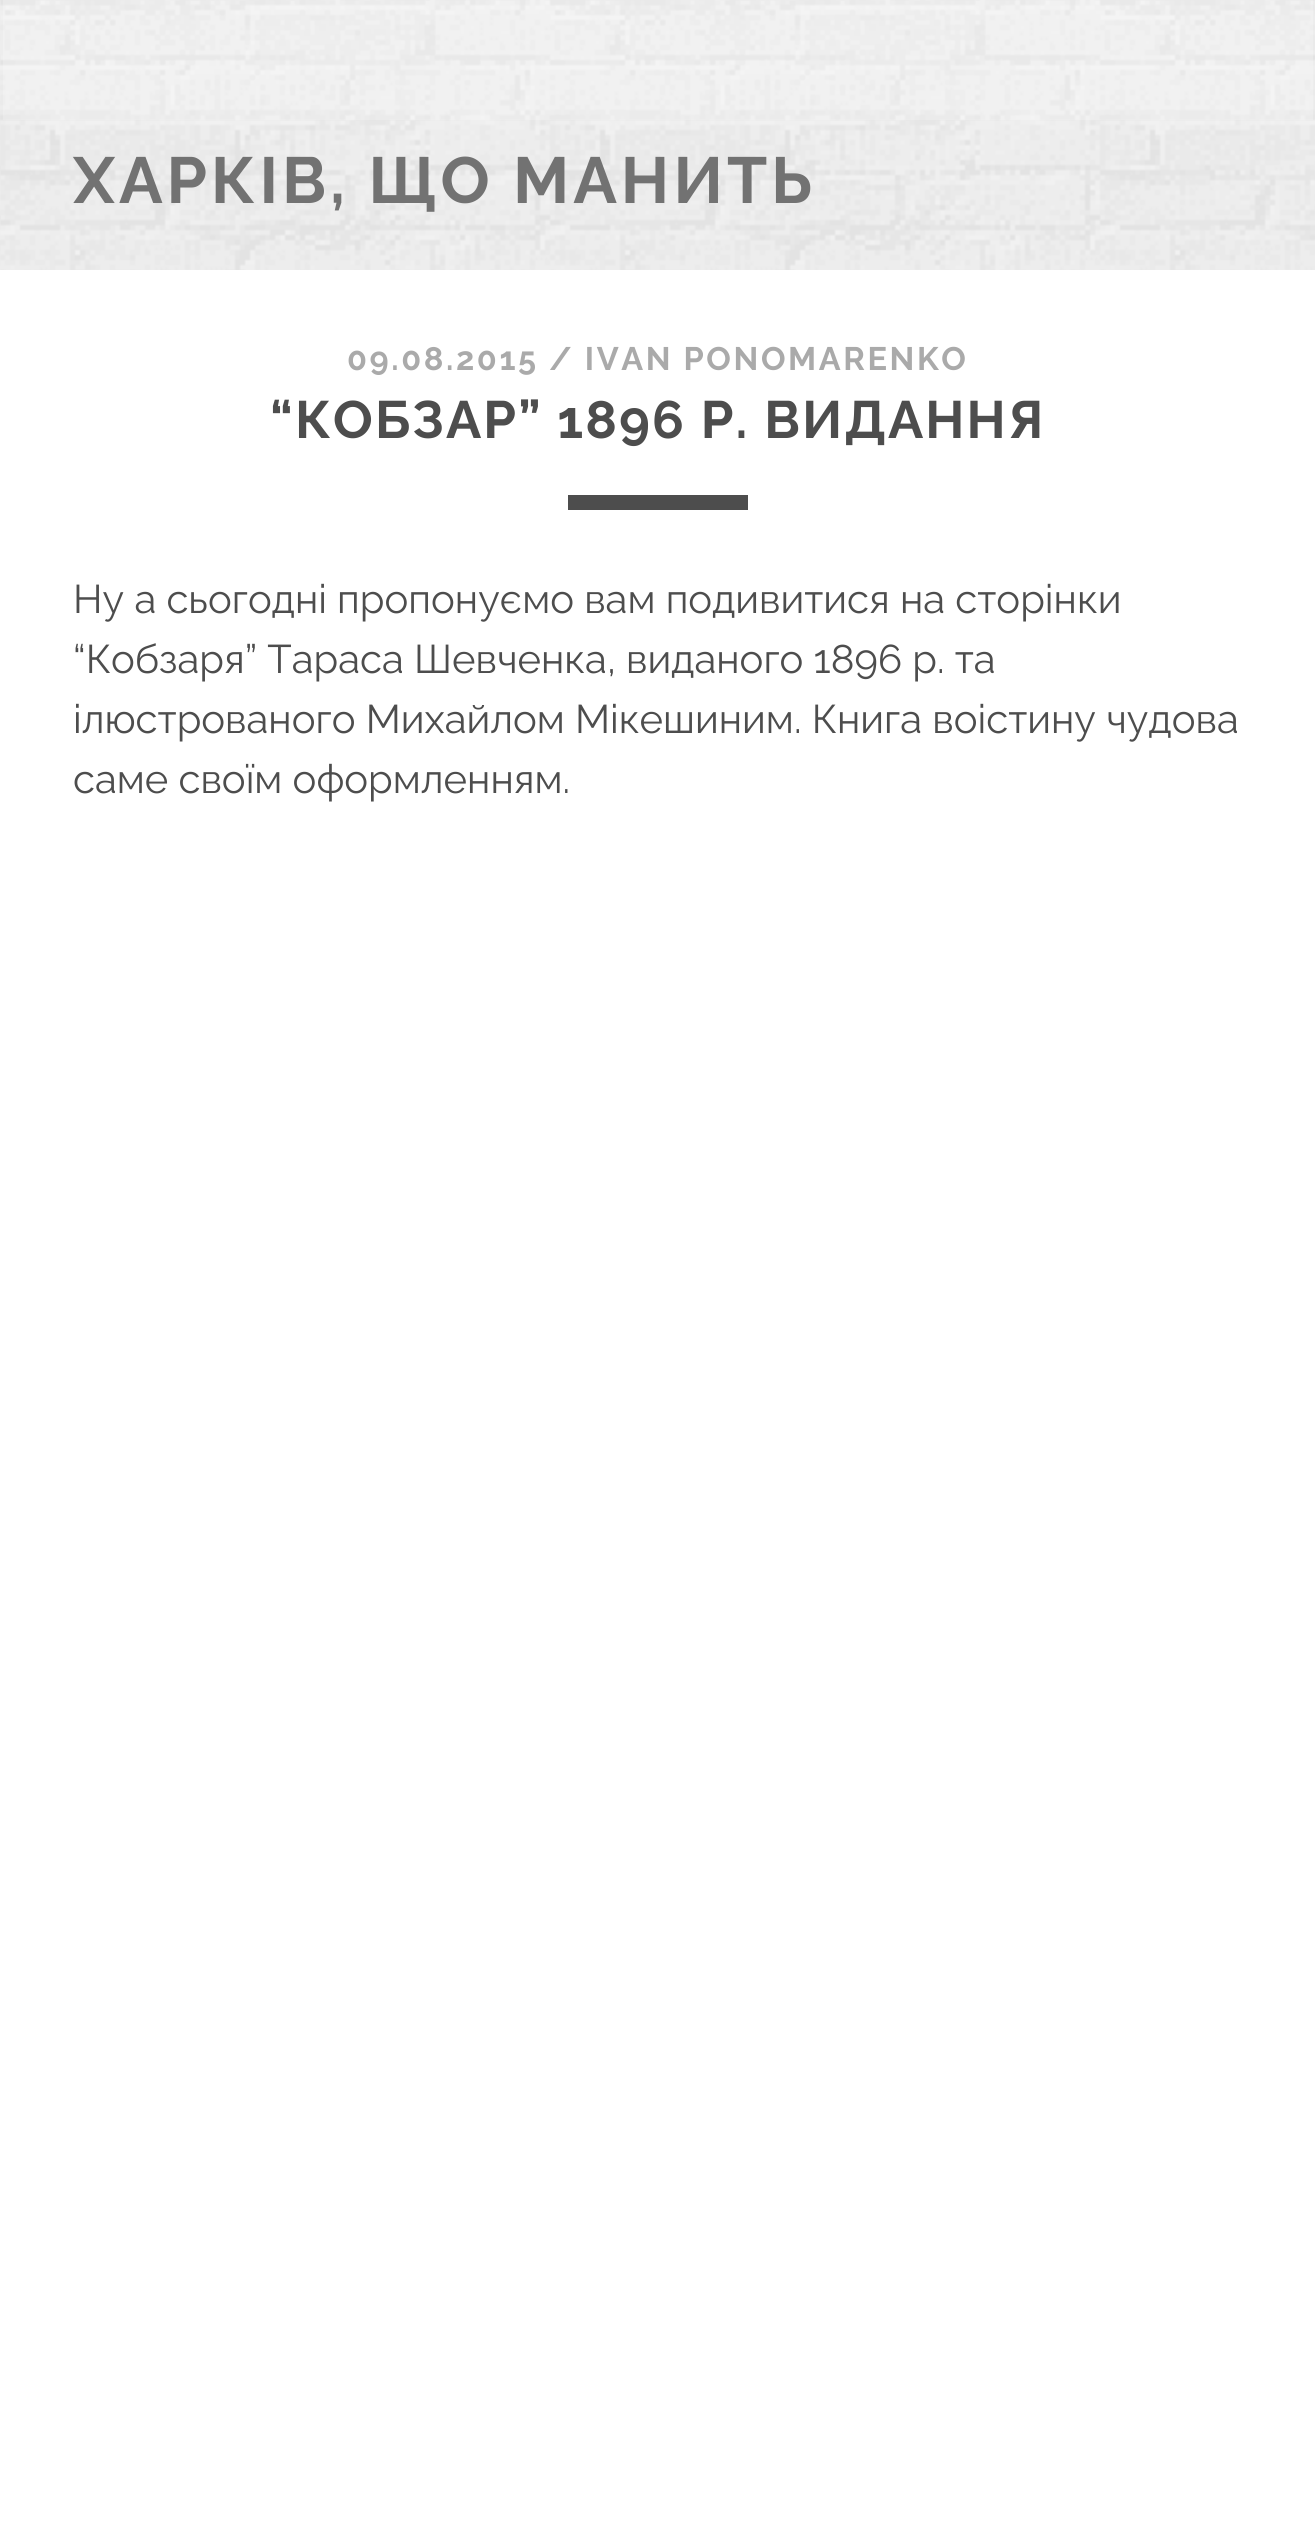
import math
import cairo

surface = cairo.ImageSurface(cairo.FORMAT_RGB24, 1315, 2534)
ctx = cairo.Context(surface)
options = cairo.FontOptions()
options.set_hint_metrics(cairo.HINT_METRICS_OFF)
options.set_hint_style(cairo.HINT_STYLE_NONE)
ctx.set_font_options(options)
ctx.set_miter_limit(4)


def spaced_text(x, y, s, letter, word):
    ctx.move_to(x, y)
    for ch in s:
        ctx.show_text(ch)
        ctx.rel_move_to(letter + word * (ch == ' '), 0)


def picture(path, x, y, w, h):
    ctx.save()
    ctx.set_source_surface(cairo.ImageSurface.create_from_png(path), x, y)
    ctx.rectangle(x, y, w, h)
    ctx.fill()
    ctx.restore()


ctx.set_source_rgb(1, 1, 1)
ctx.paint()
picture("img1.png", 0, 0, 1315, 270)
ctx.set_source_rgba(1, 1, 1, 0.2)
ctx.rectangle(3, 0, 1310, 120)
ctx.fill()
ctx.select_font_face("Raleway", cairo.FONT_SLANT_NORMAL, cairo.FONT_WEIGHT_BOLD)
ctx.set_font_size(65)
ctx.set_source_rgb(0.447, 0.447, 0.447)
spaced_text(73, 203, "ХАРКІВ, ЩО МАНИТЬ", 3.9, 0)
ctx.set_font_size(32.5)
ctx.set_source_rgb(0.667, 0.667, 0.667)
spaced_text(347, 370, "09.08.2015 / ІVAN PONOMARENKO", 2.6, 0)
ctx.set_font_size(52.5)
ctx.set_source_rgb(0.302, 0.302, 0.302)
spaced_text(270, 438, "“КОБЗАР” 1896 Р. ВИДАННЯ", 2.1, 0)
ctx.rectangle(568, 495, 180, 15)
ctx.fill()
ctx.select_font_face("Raleway")
ctx.set_font_size(40)
ctx.move_to(73, 613)
ctx.show_text("Ну а сьогодні пропонуємо вам подивитися на сторінки")
ctx.move_to(73, 673)
ctx.show_text("“Кобзаря” Тараса Шевченка, виданого 1896 р. та")
ctx.move_to(73, 733)
ctx.show_text("ілюстрованого Михайлом Мікешиним. Книга воістину чудова")
ctx.move_to(73, 793)
ctx.show_text("саме своїм оформленням.")
surface.write_to_png("page.png")
